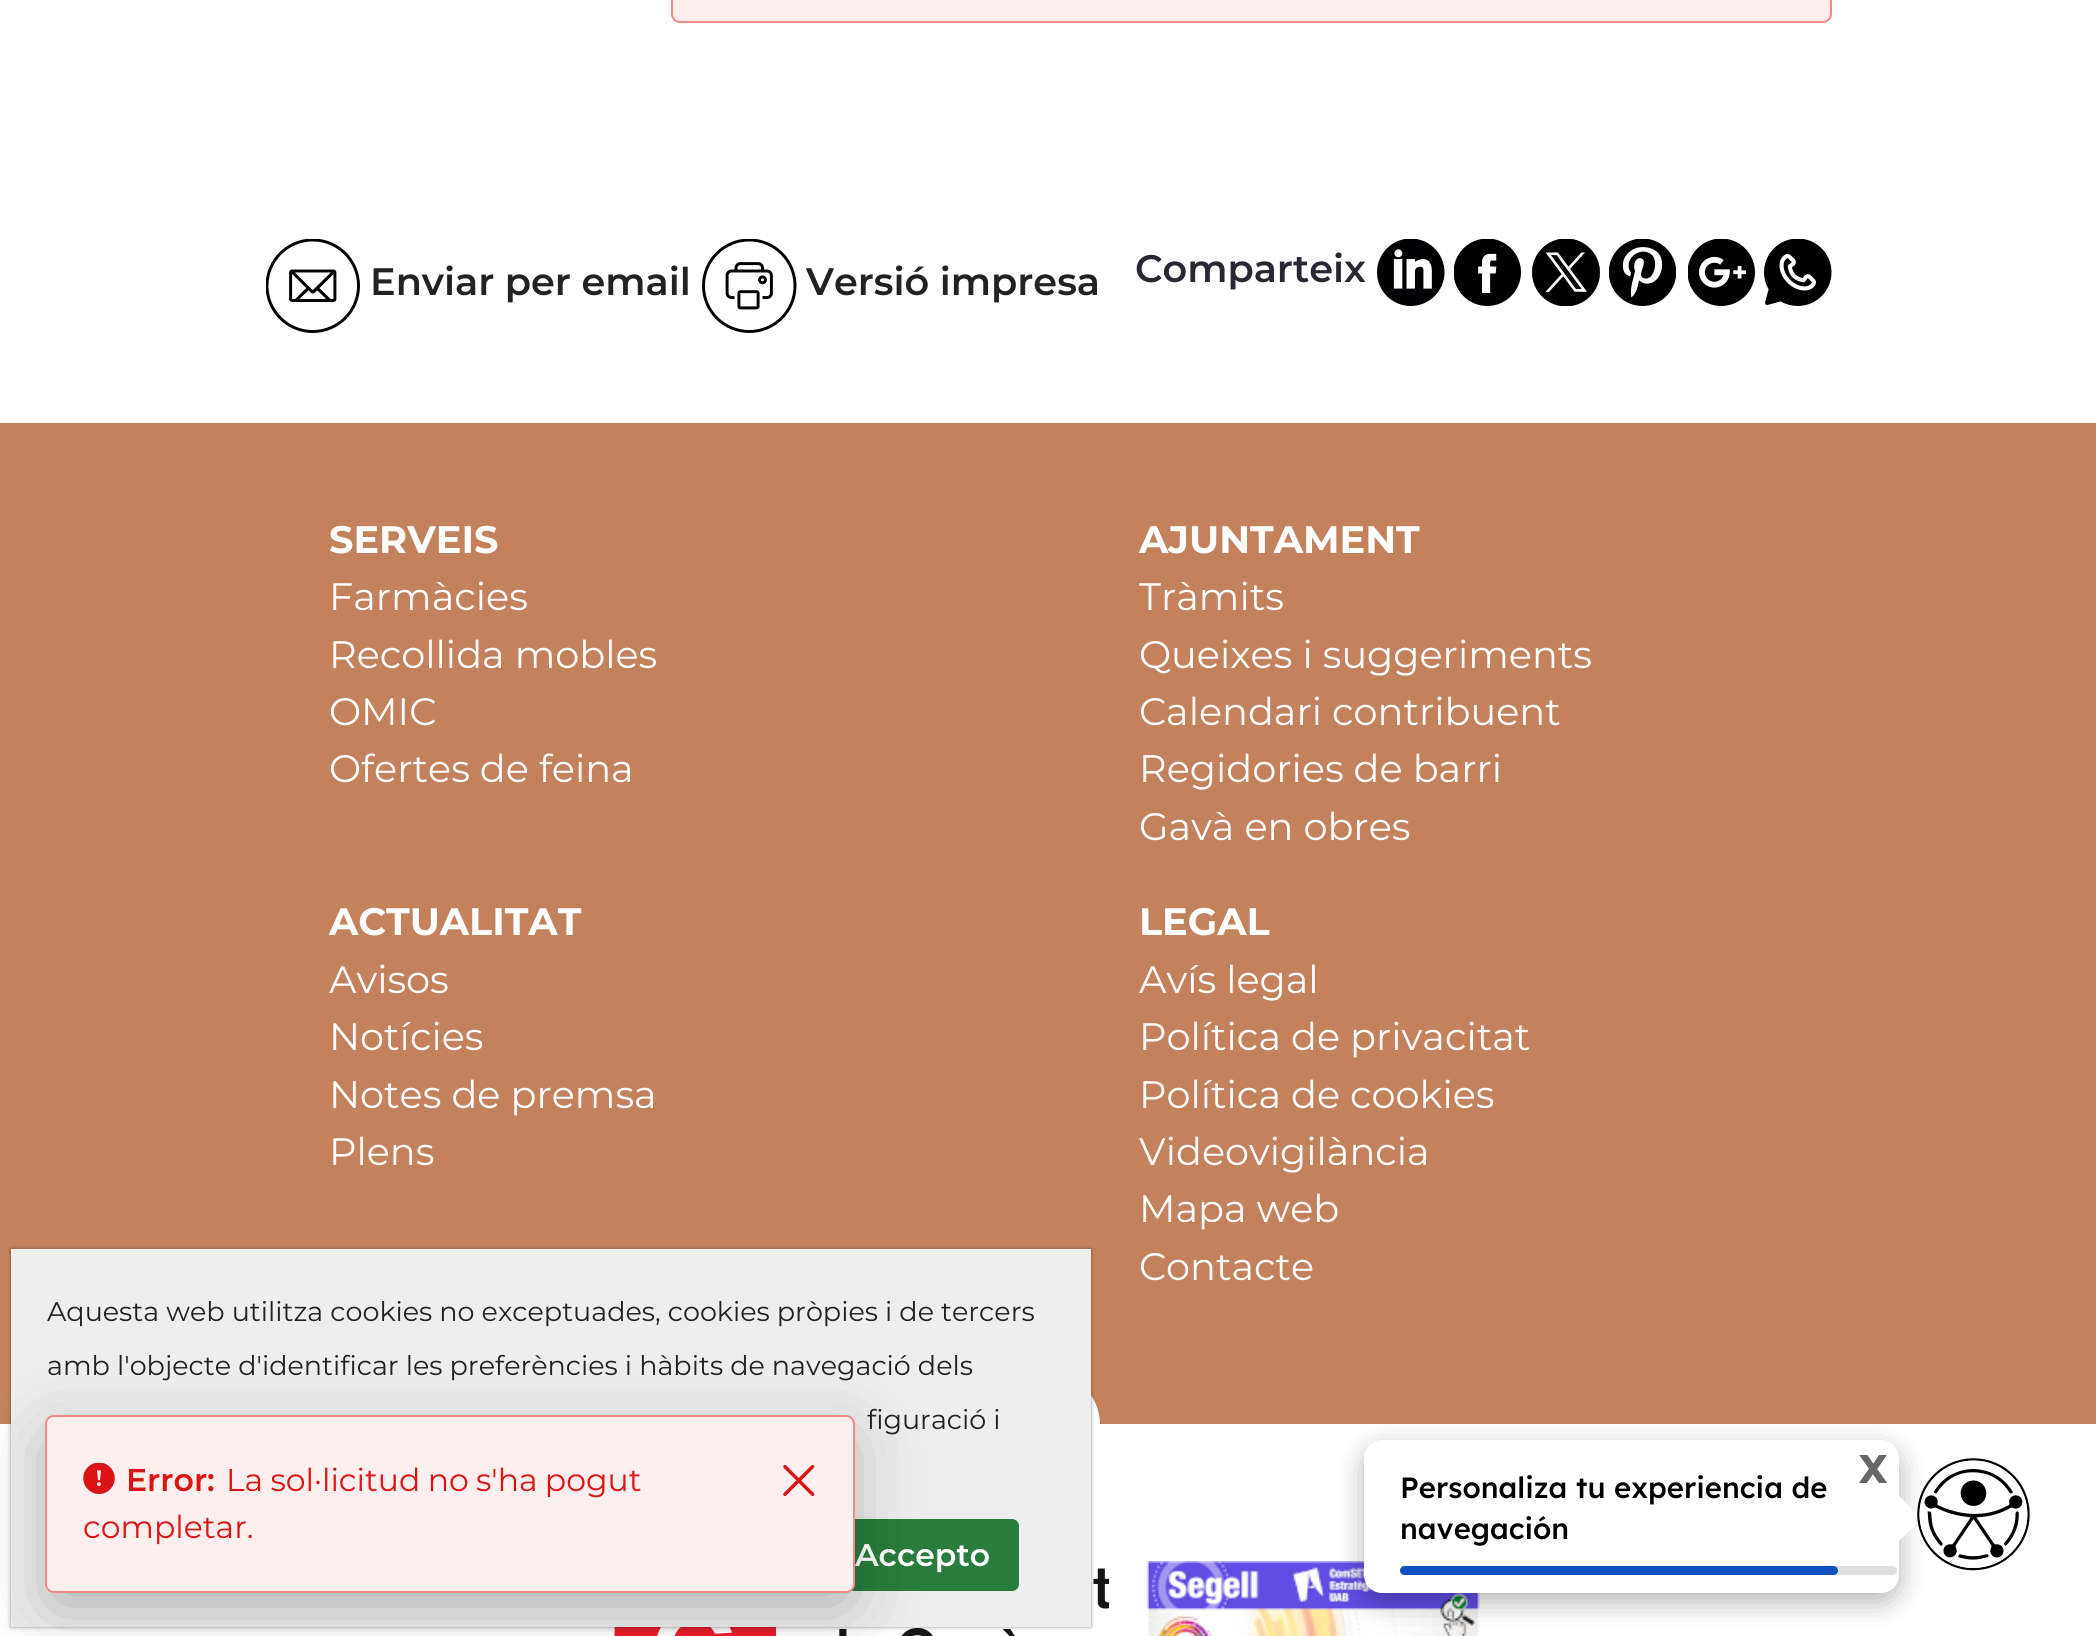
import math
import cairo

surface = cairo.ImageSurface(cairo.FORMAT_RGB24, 2096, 1636)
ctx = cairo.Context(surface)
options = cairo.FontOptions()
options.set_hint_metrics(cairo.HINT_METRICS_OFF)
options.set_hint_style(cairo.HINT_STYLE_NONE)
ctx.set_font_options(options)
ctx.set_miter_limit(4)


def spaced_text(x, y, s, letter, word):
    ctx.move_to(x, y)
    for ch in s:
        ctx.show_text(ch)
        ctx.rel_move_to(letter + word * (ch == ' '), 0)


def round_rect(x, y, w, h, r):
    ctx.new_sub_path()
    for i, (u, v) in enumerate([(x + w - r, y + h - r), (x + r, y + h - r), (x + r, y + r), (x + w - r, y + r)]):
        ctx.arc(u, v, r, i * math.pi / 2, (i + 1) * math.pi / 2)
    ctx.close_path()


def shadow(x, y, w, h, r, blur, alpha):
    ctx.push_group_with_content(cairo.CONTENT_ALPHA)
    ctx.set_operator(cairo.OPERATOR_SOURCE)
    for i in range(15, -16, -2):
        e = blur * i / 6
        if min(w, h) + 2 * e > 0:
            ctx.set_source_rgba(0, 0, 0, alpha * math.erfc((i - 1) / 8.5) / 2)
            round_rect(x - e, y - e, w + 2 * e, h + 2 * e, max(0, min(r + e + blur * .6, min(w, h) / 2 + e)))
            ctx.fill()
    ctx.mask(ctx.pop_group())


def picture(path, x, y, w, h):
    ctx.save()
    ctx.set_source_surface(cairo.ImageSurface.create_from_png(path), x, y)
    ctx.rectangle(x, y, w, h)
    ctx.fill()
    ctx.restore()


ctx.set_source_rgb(1, 1, 1)
ctx.paint()
ctx.set_source_rgb(0.996, 0.937, 0.937)
round_rect(672, -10, 1159, 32, 8)
ctx.fill_preserve()
ctx.set_source_rgb(0.957, 0.537, 0.537)
ctx.stroke()
picture("img1.png", 266, 239, 94, 94)
ctx.select_font_face("Montserrat SemiBold")
ctx.set_font_size(38.25)
ctx.set_source_rgb(0.133, 0.133, 0.133)
ctx.move_to(370, 295)
ctx.show_text("Enviar per email")
picture("img2.png", 702, 239, 95, 94)
ctx.move_to(806, 295)
ctx.show_text("Versió impresa")
ctx.set_source_rgb(0.153, 0.157, 0.2)
ctx.move_to(1135, 282)
ctx.show_text("Comparteix")
picture("img3.png", 1377, 239, 68, 67)
picture("img4.png", 1454, 239, 67, 67)
picture("img5.png", 1532, 239, 68, 67)
picture("img6.png", 1609, 239, 67, 67)
picture("img7.png", 1688, 239, 67, 67)
picture("img8.png", 1764, 239, 68, 67)
ctx.set_source_rgb(0.765, 0.51, 0.361)
ctx.rectangle(0, 423, 2096, 1001)
ctx.fill()
ctx.select_font_face("Montserrat", cairo.FONT_SLANT_NORMAL, cairo.FONT_WEIGHT_BOLD)
ctx.set_source_rgb(1, 1, 1)
ctx.move_to(329, 553)
ctx.show_text("SERVEIS")
ctx.select_font_face("Montserrat")
ctx.move_to(329, 610)
ctx.show_text("Farmàcies")
ctx.move_to(329, 668)
ctx.show_text("Recollida mobles")
ctx.move_to(329, 725)
ctx.show_text("OMIC")
ctx.move_to(329, 782)
ctx.show_text("Ofertes de feina")
ctx.select_font_face("Montserrat", cairo.FONT_SLANT_NORMAL, cairo.FONT_WEIGHT_BOLD)
ctx.move_to(1139, 553)
ctx.show_text("AJUNTAMENT")
ctx.select_font_face("Montserrat")
ctx.move_to(1139, 610)
ctx.show_text("Tràmits")
ctx.move_to(1139, 668)
ctx.show_text("Queixes i suggeriments")
ctx.move_to(1139, 725)
ctx.show_text("Calendari contribuent")
ctx.move_to(1139, 782)
ctx.show_text("Regidories de barri")
ctx.move_to(1139, 840)
ctx.show_text("Gavà en obres")
ctx.select_font_face("Montserrat", cairo.FONT_SLANT_NORMAL, cairo.FONT_WEIGHT_BOLD)
ctx.move_to(329, 935)
ctx.show_text("ACTUALITAT")
ctx.select_font_face("Montserrat")
ctx.move_to(329, 993)
ctx.show_text("Avisos")
ctx.move_to(329, 1050)
ctx.show_text("Notícies")
ctx.move_to(329, 1108)
ctx.show_text("Notes de premsa")
ctx.move_to(329, 1165)
ctx.show_text("Plens")
ctx.select_font_face("Montserrat", cairo.FONT_SLANT_NORMAL, cairo.FONT_WEIGHT_BOLD)
ctx.move_to(1139, 935)
ctx.show_text("LEGAL")
ctx.select_font_face("Montserrat")
ctx.move_to(1139, 993)
ctx.show_text("Avís legal")
ctx.move_to(1139, 1050)
ctx.show_text("Política de privacitat")
ctx.move_to(1139, 1108)
ctx.show_text("Política de cookies")
ctx.move_to(1139, 1165)
ctx.show_text("Videovigilància")
ctx.move_to(1139, 1222)
ctx.show_text("Mapa web")
ctx.move_to(1139, 1280)
ctx.show_text("Contacte")
ctx.new_path()
ctx.arc(1048.5, 1424.5, 48, 0, 2 * math.pi)
ctx.fill_preserve()
ctx.set_line_width(7)
ctx.stroke()
picture("img9.png", 614, 1568, 495, 68)
picture("img10.png", 1146, 1561, 334, 75)
ctx.set_source_rgb(0.133, 0.133, 0.133)
shadow(11, 1249, 1080, 378, 0, 2, 0.5)
ctx.set_source_rgb(0.933, 0.933, 0.933)
ctx.rectangle(11, 1249, 1080, 378)
ctx.fill()
ctx.set_font_size(27)
ctx.set_source_rgb(0.133, 0.133, 0.133)
ctx.move_to(47, 1321)
ctx.show_text("Aquesta web utilitza cookies no exceptuades, cookies pròpies i de tercers")
ctx.move_to(47, 1375)
ctx.show_text("amb l'objecte d'identificar les preferències i hàbits de navegació dels")
ctx.move_to(867, 1429)
ctx.show_text("figuració i")
ctx.set_source_rgb(0.157, 0.49, 0.239)
round_rect(827, 1520, 191, 70, 6)
ctx.fill_preserve()
ctx.set_line_width(2)
ctx.stroke()
ctx.select_font_face("Montserrat SemiBold")
ctx.set_font_size(31.5)
ctx.set_source_rgb(1, 1, 1)
ctx.move_to(855, 1566)
ctx.show_text("Accepto")
ctx.set_source_rgb(0, 0, 0)
shadow(1364, 1449, 535, 153, 18, 13.5, 0.3)
ctx.set_source_rgb(1, 1, 1)
round_rect(1364, 1440, 535, 153, 18)
ctx.fill()
ctx.select_font_face("Lexend", cairo.FONT_SLANT_NORMAL, cairo.FONT_WEIGHT_BOLD)
ctx.set_font_size(40)
ctx.set_source_rgb(0.4, 0.4, 0.4)
ctx.move_to(1859, 1483)
ctx.show_text("X")
ctx.select_font_face("Lexend Medium")
ctx.set_font_size(29.25)
ctx.set_source_rgb(0, 0, 0)
ctx.move_to(1400, 1498)
ctx.show_text("Personaliza tu experiencia de")
ctx.move_to(1400, 1539)
ctx.show_text("navegación")
ctx.set_source_rgb(1, 1, 1)
ctx.new_path()
ctx.move_to(1899, 1541)
ctx.line_to(1899, 1496)
ctx.line_to(1922, 1519)
ctx.close_path()
ctx.fill()
ctx.set_source_rgb(0.878, 0.878, 0.878)
round_rect(1400, 1566, 497, 9, 4.5)
ctx.fill()
ctx.set_source_rgb(0.059, 0.322, 0.741)
round_rect(1400, 1566, 438, 9, 4.5)
ctx.fill()
picture("img11.png", 1917, 1458, 113, 113)
ctx.set_source_rgb(0, 0, 0)
shadow(54, 1442, 792, 160, 0, 36, 0.3)
ctx.set_source_rgb(0.996, 0.937, 0.937)
round_rect(46, 1416, 808, 176, 8)
ctx.fill_preserve()
ctx.set_source_rgb(0.957, 0.537, 0.537)
ctx.stroke()
picture("img12.png", 83, 1463, 32, 31)
ctx.select_font_face("Montserrat SemiBold")
ctx.set_font_size(31.5)
ctx.set_source_rgb(0.855, 0.078, 0.078)
ctx.move_to(126, 1491)
ctx.show_text("Error:")
ctx.select_font_face("Montserrat")
spaced_text(226, 1491, "La sol·licitud no s'ha pogut", 0, -1)
picture("img13.png", 783, 1465, 32, 31)
ctx.move_to(83, 1538)
ctx.show_text("completar.")
surface.write_to_png("page.png")
